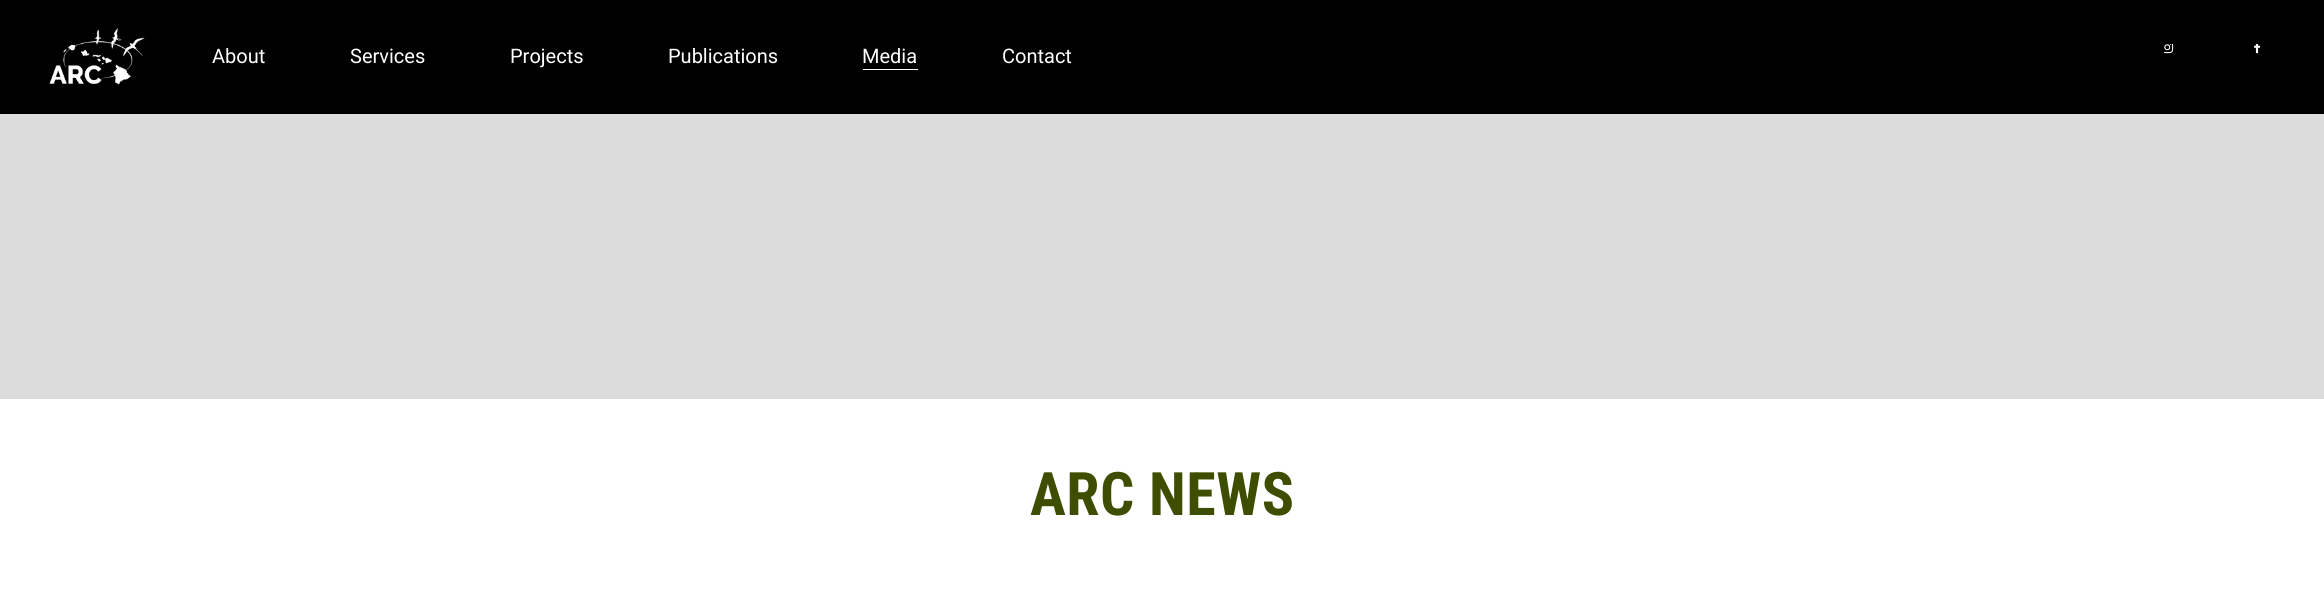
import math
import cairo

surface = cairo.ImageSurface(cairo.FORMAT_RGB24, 2324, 604)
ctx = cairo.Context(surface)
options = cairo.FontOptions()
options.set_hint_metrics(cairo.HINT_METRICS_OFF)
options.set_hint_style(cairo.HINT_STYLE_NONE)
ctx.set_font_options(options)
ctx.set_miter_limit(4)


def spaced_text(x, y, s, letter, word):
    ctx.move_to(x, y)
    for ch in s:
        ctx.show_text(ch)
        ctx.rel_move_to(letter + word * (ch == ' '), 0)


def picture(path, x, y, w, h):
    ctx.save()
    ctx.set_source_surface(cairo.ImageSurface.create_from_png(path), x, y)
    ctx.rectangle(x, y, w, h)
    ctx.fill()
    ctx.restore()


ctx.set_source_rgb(0.863, 0.863, 0.863)
ctx.paint()
ctx.set_source_rgb(0, 0, 0)
ctx.rectangle(0, 0, 2324, 114)
ctx.fill()
picture("img1.png", 49, 28, 96, 57)
ctx.select_font_face("Roboto")
ctx.set_font_size(20)
ctx.set_source_rgb(1, 1, 1)
ctx.move_to(212, 63)
ctx.show_text("About")
ctx.move_to(350, 63)
ctx.show_text("Services")
ctx.move_to(510, 63)
ctx.show_text("Projects")
ctx.move_to(668, 63)
ctx.show_text("Publications")
ctx.rectangle(863, 69, 55, 1)
ctx.fill()
ctx.move_to(862, 63)
ctx.show_text("Media")
ctx.move_to(1002, 63)
ctx.show_text("Contact")
picture("img2.png", 2164, 44, 10, 10)
picture("img3.png", 2254, 44, 7, 10)
ctx.rectangle(0, 399, 2324, 205)
ctx.fill()
ctx.select_font_face("Roboto Condensed", cairo.FONT_SLANT_NORMAL, cairo.FONT_WEIGHT_BOLD)
ctx.set_font_size(60)
ctx.set_source_rgb(0.243, 0.306, 0)
spaced_text(1030, 515, "ARC NEWS", 0.5, 0)
surface.write_to_png("page.png")
